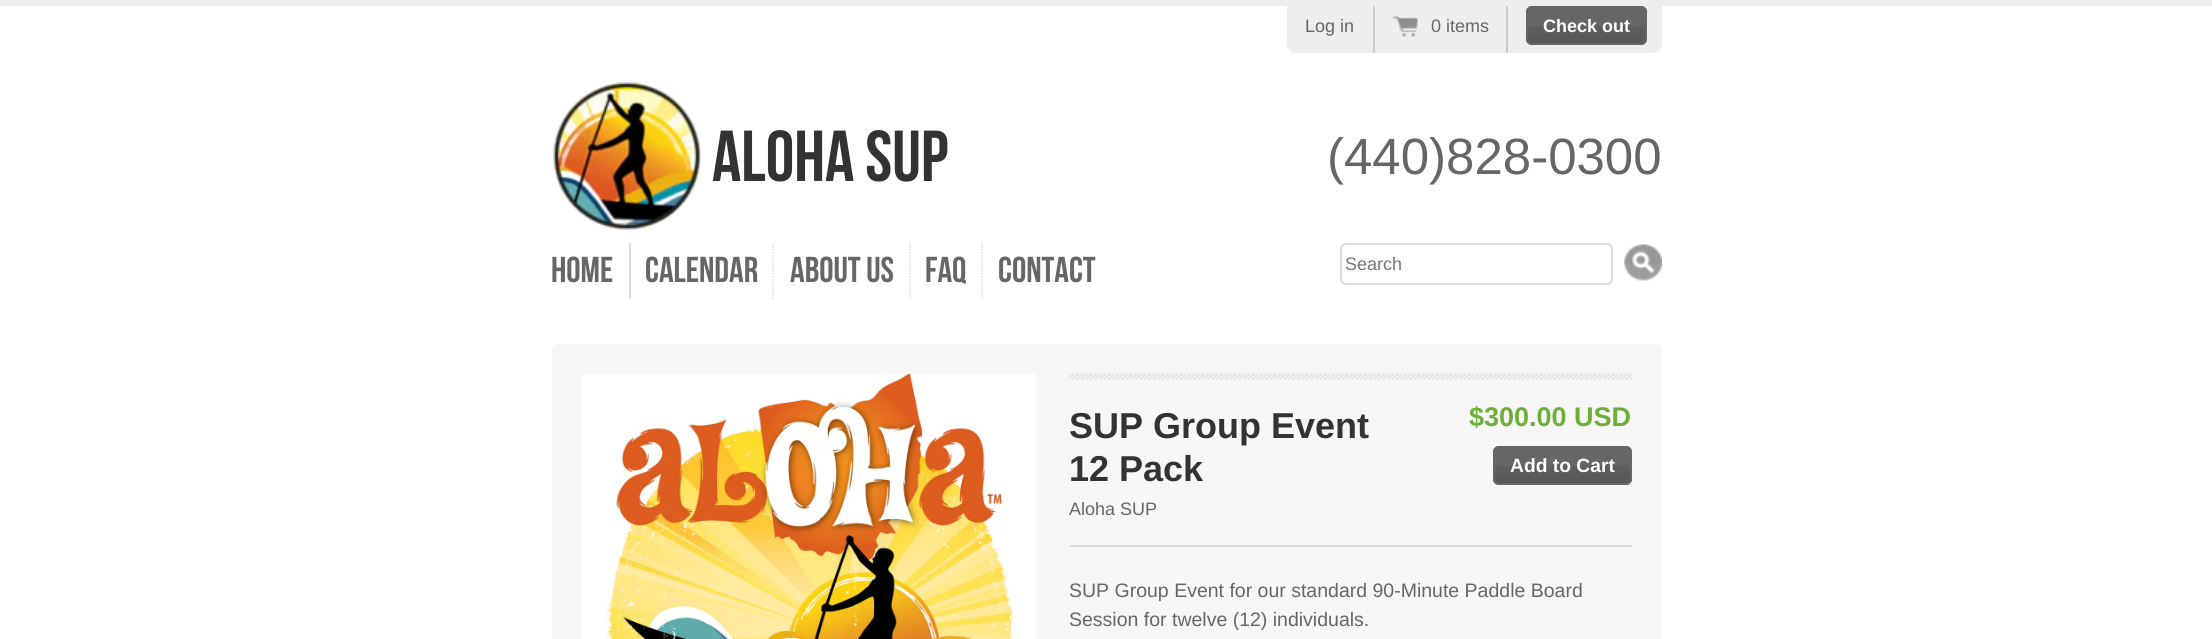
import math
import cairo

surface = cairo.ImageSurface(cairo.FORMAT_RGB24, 2212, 639)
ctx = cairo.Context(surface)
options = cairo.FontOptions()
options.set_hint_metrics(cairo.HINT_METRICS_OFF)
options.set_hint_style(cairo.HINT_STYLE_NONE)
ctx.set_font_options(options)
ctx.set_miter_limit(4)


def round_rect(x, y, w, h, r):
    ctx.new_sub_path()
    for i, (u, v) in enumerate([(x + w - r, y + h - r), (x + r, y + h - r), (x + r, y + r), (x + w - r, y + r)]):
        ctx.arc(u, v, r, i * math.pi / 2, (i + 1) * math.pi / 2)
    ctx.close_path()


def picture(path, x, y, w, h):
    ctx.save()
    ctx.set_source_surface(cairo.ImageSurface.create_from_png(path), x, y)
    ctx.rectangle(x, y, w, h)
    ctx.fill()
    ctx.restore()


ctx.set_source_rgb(1, 1, 1)
ctx.paint()
ctx.set_source_rgb(0.933, 0.933, 0.933)
ctx.rectangle(0, 0, 2212, 6)
ctx.fill()
ctx.new_path()
ctx.move_to(1287, 6)
ctx.line_to(1662, 6)
ctx.line_to(1662, 44)
ctx.curve_to(1662, 49, 1658, 53, 1653, 53)
ctx.line_to(1296, 53)
ctx.curve_to(1291, 53, 1287, 49, 1287, 44)
ctx.close_path()
ctx.fill()
ctx.set_source_rgb(0.8, 0.8, 0.8)
ctx.rectangle(1373, 6, 2, 47)
ctx.fill()
ctx.select_font_face("Liberation Sans")
ctx.set_font_size(18)
ctx.set_source_rgb(0.4, 0.4, 0.4)
ctx.move_to(1305, 32)
ctx.show_text("Log in")
ctx.set_source_rgb(0.8, 0.8, 0.8)
ctx.rectangle(1506, 6, 2, 47)
ctx.fill()
picture("img1.png", 1392, 15, 26, 22)
ctx.set_source_rgb(0.4, 0.4, 0.4)
ctx.move_to(1431, 32)
ctx.show_text("0 items")
round_rect(1526, 6, 121, 39, 6)
ctx.fill()
picture("img2.png", 1525, 26, 122, 18)
round_rect(1527, 7, 119, 37, 5)
ctx.stroke()
ctx.select_font_face("Liberation Sans", cairo.FONT_SLANT_NORMAL, cairo.FONT_WEIGHT_BOLD)
ctx.set_source_rgb(1, 1, 1)
ctx.move_to(1543, 32)
ctx.show_text("Check out")
picture("img3.png", 553, 82, 148, 148)
ctx.select_font_face("Bebas Neue")
ctx.set_font_size(72)
ctx.set_source_rgb(0.2, 0.2, 0.2)
ctx.move_to(712, 181)
ctx.show_text("Aloha SUP")
ctx.select_font_face("Liberation Sans")
ctx.set_font_size(51)
ctx.set_source_rgb(0.4, 0.4, 0.4)
ctx.move_to(1327, 174)
ctx.show_text("(440)828-0300")
ctx.set_source_rgb(0.867, 0.867, 0.867)
ctx.rectangle(629, 243, 2, 56)
ctx.fill()
ctx.select_font_face("Bebas Neue")
ctx.set_font_size(36)
ctx.set_source_rgb(0.4, 0.4, 0.4)
ctx.move_to(551, 282)
ctx.show_text("Home")
ctx.new_path()
ctx.move_to(773, 243)
ctx.line_to(773, 298.5)
ctx.set_source_rgb(0.867, 0.867, 0.867)
ctx.set_line_width(1.5)
ctx.set_dash([1.5, 1.5])
ctx.stroke()
ctx.set_source_rgb(0.4, 0.4, 0.4)
ctx.move_to(645, 282)
ctx.show_text("Calendar")
ctx.new_path()
ctx.move_to(910, 243)
ctx.line_to(910, 298.5)
ctx.set_source_rgb(0.867, 0.867, 0.867)
ctx.stroke()
ctx.set_source_rgb(0.4, 0.4, 0.4)
ctx.move_to(790, 282)
ctx.show_text("About Us")
ctx.new_path()
ctx.move_to(982, 243)
ctx.line_to(982, 298.5)
ctx.set_source_rgb(0.867, 0.867, 0.867)
ctx.stroke()
ctx.set_source_rgb(0.4, 0.4, 0.4)
ctx.move_to(925, 282)
ctx.show_text("FAQ")
ctx.move_to(998, 282)
ctx.show_text("Contact")
round_rect(1341, 244, 271, 40, 5)
ctx.set_source_rgb(0.867, 0.867, 0.867)
ctx.set_line_width(2)
ctx.set_dash([])
ctx.stroke()
ctx.select_font_face("Liberation Sans")
ctx.set_font_size(18)
ctx.set_source_rgb(0.459, 0.459, 0.459)
ctx.move_to(1345, 270)
ctx.show_text("Search")
picture("img4.png", 1624, 244, 38, 37)
ctx.set_source_rgb(0.965, 0.965, 0.965)
ctx.new_path()
ctx.move_to(558, 344)
ctx.line_to(1656, 344)
ctx.curve_to(1659.5, 344, 1662, 346.5, 1662, 350)
ctx.line_to(1662, 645)
ctx.line_to(552, 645)
ctx.line_to(552, 350)
ctx.curve_to(552, 346.5, 554.5, 344, 558, 344)
ctx.close_path()
ctx.fill()
picture("img5.png", 582, 373, 454, 266)
picture("img6.png", 1069, 373, 563, 7)
ctx.set_source_rgb(0.867, 0.867, 0.867)
ctx.rectangle(1070, 545, 562, 2)
ctx.fill()
ctx.select_font_face("Liberation Sans", cairo.FONT_SLANT_NORMAL, cairo.FONT_WEIGHT_BOLD)
ctx.set_font_size(36)
ctx.set_source_rgb(0.2, 0.2, 0.2)
ctx.move_to(1069, 438)
ctx.show_text("SUP Group Event")
ctx.move_to(1069, 481)
ctx.show_text("12 Pack")
ctx.select_font_face("Liberation Sans")
ctx.set_font_size(18)
ctx.set_source_rgb(0.4, 0.4, 0.4)
ctx.move_to(1069, 515)
ctx.show_text("Aloha SUP")
ctx.select_font_face("Liberation Sans", cairo.FONT_SLANT_NORMAL, cairo.FONT_WEIGHT_BOLD)
ctx.set_font_size(27)
ctx.set_source_rgb(0.427, 0.69, 0.22)
ctx.move_to(1469, 426)
ctx.show_text("$300.00 USD")
ctx.set_source_rgb(0.4, 0.4, 0.4)
round_rect(1493, 446, 139, 39, 6)
ctx.fill()
picture("img7.png", 1492, 465, 140, 18)
round_rect(1494, 447, 137, 37, 5)
ctx.stroke()
ctx.set_font_size(19.25)
ctx.set_source_rgb(1, 1, 1)
ctx.move_to(1510, 472)
ctx.show_text("Add to Cart")
ctx.select_font_face("Liberation Sans")
ctx.set_font_size(19.5)
ctx.set_source_rgb(0.4, 0.4, 0.4)
ctx.move_to(1069, 597)
ctx.show_text("SUP Group Event for our standard 90-Minute Paddle Board")
ctx.move_to(1069, 626)
ctx.show_text("Session for twelve (12) individuals.")
surface.write_to_png("page.png")
